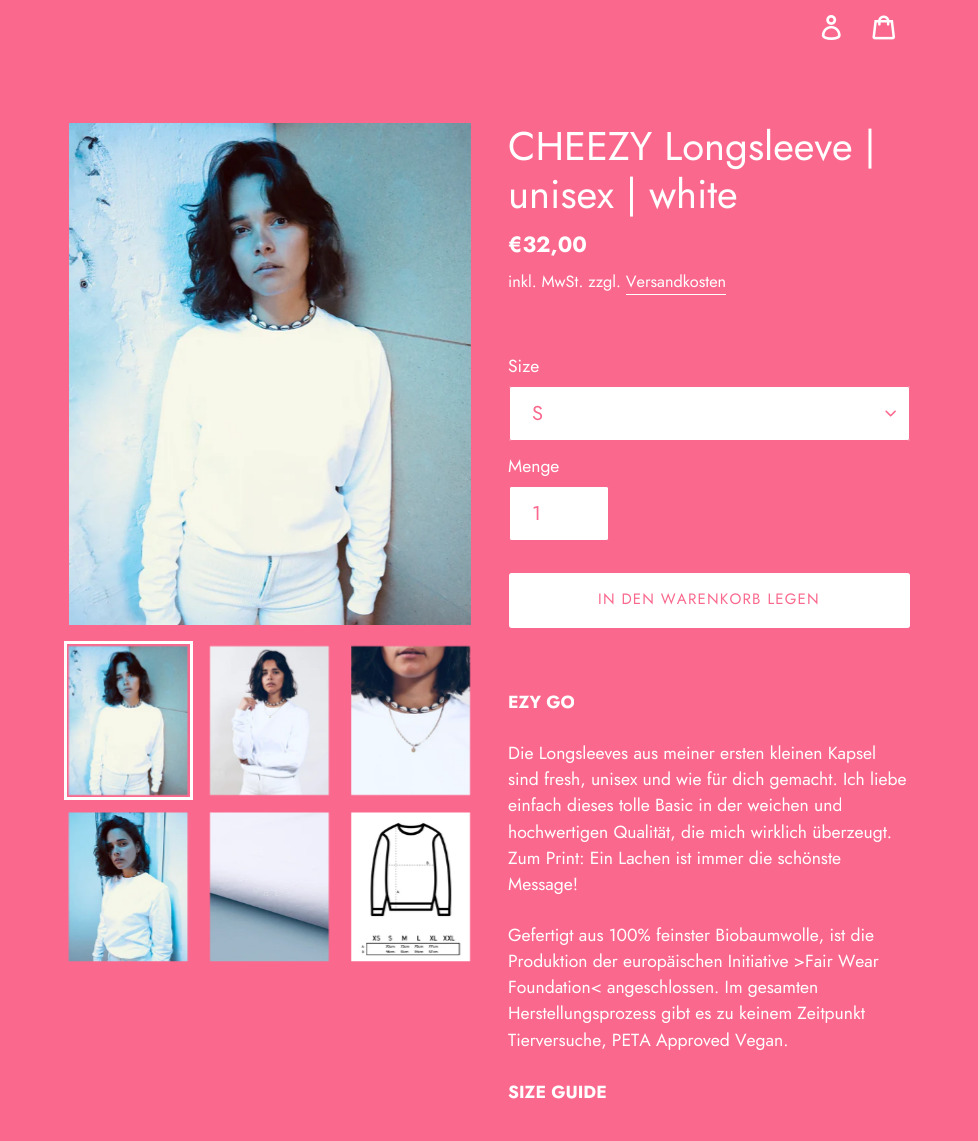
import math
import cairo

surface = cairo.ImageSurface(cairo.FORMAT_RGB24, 978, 1141)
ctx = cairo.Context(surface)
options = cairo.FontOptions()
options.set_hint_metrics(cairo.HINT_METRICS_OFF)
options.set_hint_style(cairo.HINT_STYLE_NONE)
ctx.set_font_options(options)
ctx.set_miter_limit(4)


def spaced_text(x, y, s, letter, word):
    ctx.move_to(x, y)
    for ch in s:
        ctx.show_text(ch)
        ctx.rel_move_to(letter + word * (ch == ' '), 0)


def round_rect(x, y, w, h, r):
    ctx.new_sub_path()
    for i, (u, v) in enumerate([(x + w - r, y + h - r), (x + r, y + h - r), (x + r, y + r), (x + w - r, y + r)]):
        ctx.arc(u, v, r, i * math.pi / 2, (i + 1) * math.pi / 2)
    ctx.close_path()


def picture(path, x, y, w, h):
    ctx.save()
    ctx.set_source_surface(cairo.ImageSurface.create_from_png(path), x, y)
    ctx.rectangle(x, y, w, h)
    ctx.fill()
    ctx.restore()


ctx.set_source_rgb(0.98, 0.408, 0.553)
ctx.paint()
picture("img1.png", 821, 15, 20, 25)
picture("img2.png", 872, 15, 23, 25)
picture("img3.png", 69, 123, 402, 502)
ctx.rectangle(65.5, 642.5, 126, 156)
ctx.set_source_rgb(1, 1, 1)
ctx.set_line_width(3)
ctx.stroke()
picture("img4.png", 68, 645, 121, 151)
picture("img5.png", 209, 645, 121, 151)
picture("img6.png", 351, 645, 120, 151)
picture("img7.png", 68, 812, 121, 150)
picture("img8.png", 209, 812, 121, 150)
picture("img9.png", 351, 812, 120, 150)
ctx.select_font_face("Jost")
ctx.set_font_size(40)
ctx.move_to(508, 160)
ctx.show_text("CHEEZY Longsleeve |")
ctx.move_to(508, 208)
ctx.show_text("unisex | white")
ctx.select_font_face("Jost", cairo.FONT_SLANT_NORMAL, cairo.FONT_WEIGHT_BOLD)
ctx.set_font_size(22)
ctx.move_to(508, 252)
ctx.show_text("€32,00")
ctx.select_font_face("Jost")
ctx.set_font_size(16.25)
ctx.move_to(508, 287)
ctx.show_text("inkl. MwSt. zzgl. Versandkosten")
ctx.rectangle(626, 294, 100, 1)
ctx.fill()
ctx.set_font_size(17.5)
ctx.move_to(508, 372)
ctx.show_text("Size")
round_rect(509, 386, 401, 55, 2.5)
ctx.fill()
picture("img10.png", 885, 410, 11, 7)
round_rect(509.5, 386.5, 400, 54, 2)
ctx.set_source_rgb(0.98, 0.408, 0.553)
ctx.set_line_width(1)
ctx.stroke()
ctx.set_font_size(20)
ctx.move_to(532, 420)
ctx.show_text("S")
ctx.set_font_size(17.5)
ctx.set_source_rgb(1, 1, 1)
ctx.move_to(508, 472)
ctx.show_text("Menge")
round_rect(509.5, 486.5, 99, 54, 2)
ctx.fill_preserve()
ctx.set_source_rgb(0.98, 0.408, 0.553)
ctx.stroke()
ctx.set_font_size(20)
ctx.move_to(532, 520)
ctx.show_text("1")
ctx.set_source_rgb(1, 1, 1)
round_rect(509, 573, 401, 55, 2.5)
ctx.fill()
ctx.set_font_size(15)
ctx.set_source_rgb(0.98, 0.408, 0.553)
spaced_text(598, 604, "IN DEN WARENKORB LEGEN", 1.2, 0)
ctx.select_font_face("Jost", cairo.FONT_SLANT_NORMAL, cairo.FONT_WEIGHT_BOLD)
ctx.set_font_size(17.5)
ctx.set_source_rgb(1, 1, 1)
ctx.move_to(508, 708)
ctx.show_text("EZY GO")
ctx.select_font_face("Jost")
ctx.move_to(508, 759)
ctx.show_text("Die Longsleeves aus meiner ersten kleinen Kapsel")
ctx.move_to(508, 785)
ctx.show_text("sind fresh, unisex und wie für dich gemacht. Ich liebe")
ctx.move_to(508, 811)
ctx.show_text("einfach dieses tolle Basic in der weichen und")
ctx.move_to(508, 838)
ctx.show_text("hochwertigen Qualität, die mich wirklich überzeugt.")
ctx.move_to(508, 864)
ctx.show_text("Zum Print: Ein Lachen ist immer die schönste")
ctx.move_to(508, 890)
ctx.show_text("Message!")
ctx.move_to(508, 941)
ctx.show_text("Gefertigt aus 100% feinster Biobaumwolle, ist die")
ctx.move_to(508, 967)
ctx.show_text("Produktion der europäischen Initiative >Fair Wear")
ctx.move_to(508, 993)
ctx.show_text("Foundation< angeschlossen. Im gesamten")
ctx.move_to(508, 1019)
ctx.show_text("Herstellungsprozess gibt es zu keinem Zeitpunkt")
ctx.move_to(508, 1046)
ctx.show_text("Tierversuche, PETA Approved Vegan.")
ctx.select_font_face("Jost", cairo.FONT_SLANT_NORMAL, cairo.FONT_WEIGHT_BOLD)
ctx.move_to(508, 1098)
ctx.show_text("SIZE GUIDE")
surface.write_to_png("page.png")
